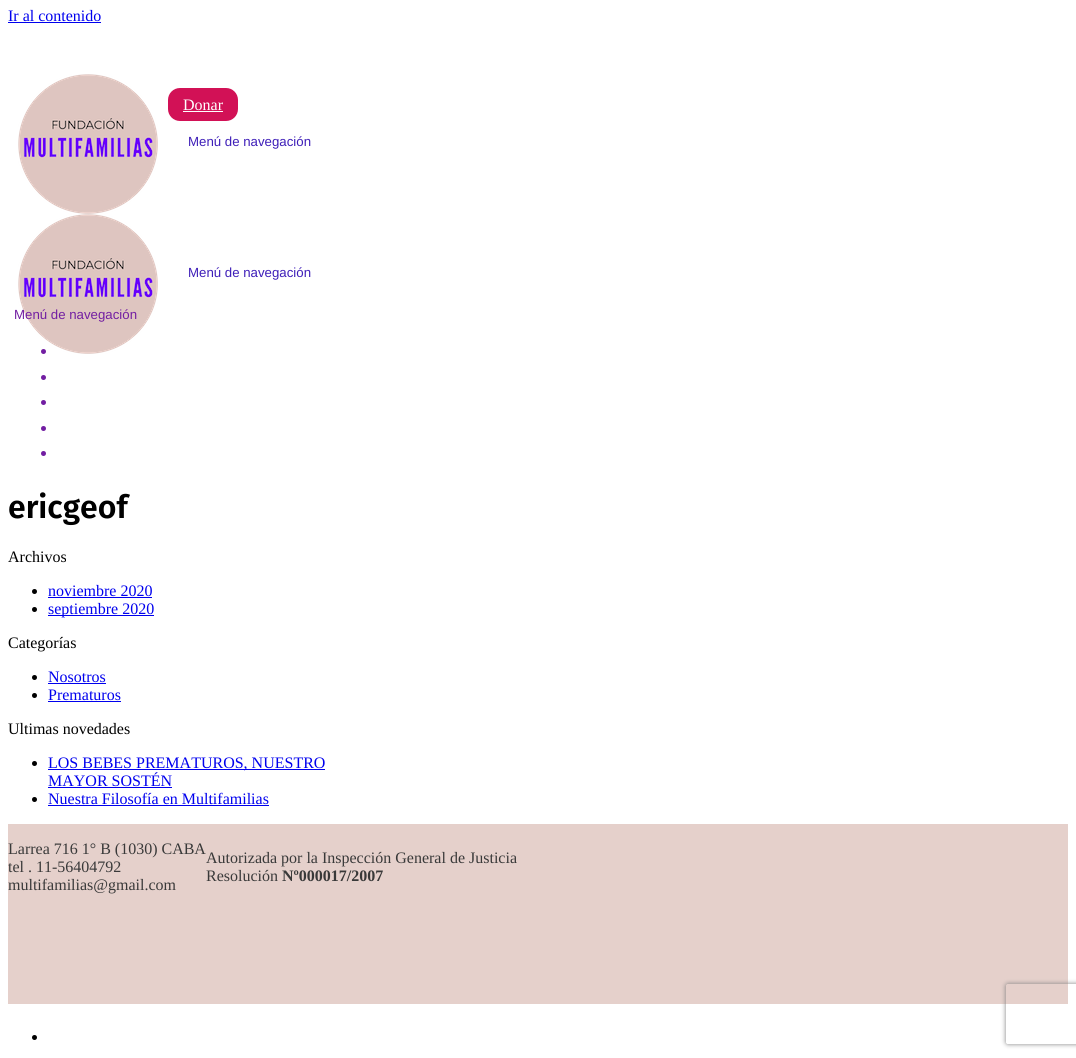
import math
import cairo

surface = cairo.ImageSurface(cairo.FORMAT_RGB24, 1076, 1058)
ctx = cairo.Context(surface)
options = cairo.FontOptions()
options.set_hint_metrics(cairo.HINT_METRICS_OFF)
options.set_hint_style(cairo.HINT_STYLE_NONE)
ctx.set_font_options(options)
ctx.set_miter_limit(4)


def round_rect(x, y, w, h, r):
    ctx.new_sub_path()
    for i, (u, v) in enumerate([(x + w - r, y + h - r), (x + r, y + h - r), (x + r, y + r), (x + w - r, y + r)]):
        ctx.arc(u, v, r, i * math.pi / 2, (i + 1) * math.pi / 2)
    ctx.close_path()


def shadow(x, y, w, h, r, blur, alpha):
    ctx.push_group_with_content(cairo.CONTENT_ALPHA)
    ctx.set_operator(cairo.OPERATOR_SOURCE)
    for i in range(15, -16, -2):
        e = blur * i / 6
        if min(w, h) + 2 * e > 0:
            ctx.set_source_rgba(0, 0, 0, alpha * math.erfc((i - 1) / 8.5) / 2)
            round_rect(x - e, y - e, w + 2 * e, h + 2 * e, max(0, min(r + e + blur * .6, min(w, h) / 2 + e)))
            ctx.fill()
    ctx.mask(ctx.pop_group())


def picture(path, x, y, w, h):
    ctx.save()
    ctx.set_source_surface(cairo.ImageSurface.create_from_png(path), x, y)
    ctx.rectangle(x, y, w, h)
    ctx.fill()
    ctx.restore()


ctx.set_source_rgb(1, 1, 1)
ctx.paint()
ctx.select_font_face("Liberation Serif")
ctx.set_font_size(16)
ctx.set_source_rgb(0, 0, 0.933)
ctx.move_to(8, 21)
ctx.show_text("Ir al contenido")
ctx.rectangle(8, 22, 93, 1)
ctx.fill()
picture("img1.png", 18, 74, 140, 140)
ctx.set_source_rgb(0.824, 0.067, 0.337)
round_rect(168, 88, 70, 33, 12)
ctx.fill()
ctx.set_source_rgb(1, 1, 1)
ctx.move_to(183, 110)
ctx.show_text("Donar")
ctx.rectangle(183, 111, 40, 1)
ctx.fill()
ctx.select_font_face("Liberation Sans")
ctx.set_font_size(13.25)
ctx.set_source_rgb(0.243, 0.118, 0.722)
ctx.move_to(188, 146)
ctx.show_text("Menú de navegación")
picture("img1.png", 18, 214, 140, 140)
ctx.move_to(188, 277)
ctx.show_text("Menú de navegación")
ctx.set_source_rgb(0.447, 0.118, 0.635)
ctx.move_to(14, 319)
ctx.show_text("Menú de navegación")
ctx.new_path()
ctx.arc(43.5, 351.5, 2.5, 0, 2 * math.pi)
ctx.fill()
ctx.arc(43.5, 377.5, 2.5, 0, 2 * math.pi)
ctx.fill()
ctx.arc(43.5, 402.5, 2.5, 0, 2 * math.pi)
ctx.fill()
ctx.arc(43.5, 428.5, 2.5, 0, 2 * math.pi)
ctx.fill()
ctx.arc(43.5, 453.5, 2.5, 0, 2 * math.pi)
ctx.fill()
ctx.select_font_face("Fira Sans SemiBold")
ctx.set_font_size(32)
ctx.set_source_rgb(0, 0, 0)
ctx.move_to(8, 518)
ctx.show_text("ericgeof")
ctx.select_font_face("Liberation Serif")
ctx.set_font_size(16)
ctx.move_to(8, 562)
ctx.show_text("Archivos")
ctx.new_path()
ctx.arc(34.5, 591.5, 2.5, 0, 2 * math.pi)
ctx.fill()
ctx.set_source_rgb(0, 0, 0.933)
ctx.move_to(48, 596)
ctx.show_text("noviembre 2020")
ctx.rectangle(48, 597, 104, 1)
ctx.fill()
ctx.set_source_rgb(0, 0, 0)
ctx.arc(34.5, 609.5, 2.5, 0, 2 * math.pi)
ctx.fill()
ctx.set_source_rgb(0, 0, 0.933)
ctx.rectangle(48, 615, 106, 1)
ctx.fill()
ctx.move_to(48, 614)
ctx.show_text("septiembre 2020")
ctx.set_source_rgb(0, 0, 0)
ctx.move_to(8, 648)
ctx.show_text("Categorías")
ctx.new_path()
ctx.arc(34.5, 677.5, 2.5, 0, 2 * math.pi)
ctx.fill()
ctx.set_source_rgb(0, 0, 0.933)
ctx.move_to(48, 682)
ctx.show_text("Nosotros")
ctx.rectangle(48, 683, 58, 1)
ctx.fill()
ctx.set_source_rgb(0, 0, 0)
ctx.arc(34.5, 695.5, 2.5, 0, 2 * math.pi)
ctx.fill()
ctx.set_source_rgb(0, 0, 0.933)
ctx.move_to(48, 700)
ctx.show_text("Prematuros")
ctx.rectangle(48, 701, 73, 1)
ctx.fill()
ctx.set_source_rgb(0, 0, 0)
ctx.move_to(8, 734)
ctx.show_text("Ultimas novedades")
ctx.new_path()
ctx.arc(34.5, 763.5, 2.5, 0, 2 * math.pi)
ctx.fill()
ctx.set_source_rgb(0, 0, 0.933)
ctx.rectangle(48, 769, 277, 1)
ctx.fill()
ctx.move_to(48, 768)
ctx.show_text("LOS BEBES PREMATUROS, NUESTRO")
ctx.move_to(48, 786)
ctx.show_text("MAYOR SOSTÉN")
ctx.rectangle(48, 787, 124, 1)
ctx.fill()
ctx.set_source_rgb(0, 0, 0)
ctx.arc(34.5, 799.5, 2.5, 0, 2 * math.pi)
ctx.fill()
ctx.set_source_rgb(0, 0, 0.933)
ctx.move_to(48, 804)
ctx.show_text("Nuestra Filosofía en Multifamilias")
ctx.rectangle(48, 805, 221, 1)
ctx.fill()
ctx.set_source_rgb(0.898, 0.816, 0.796)
ctx.rectangle(8, 824, 1060, 180)
ctx.fill()
ctx.set_source_rgb(0.224, 0.224, 0.224)
ctx.move_to(8, 854)
ctx.show_text("Larrea 716 1° B (1030) CABA")
ctx.move_to(8, 872)
ctx.show_text("tel . 11-56404792")
ctx.move_to(8, 890)
ctx.show_text("multifamilias@gmail.com")
ctx.move_to(206, 863)
ctx.show_text("Autorizada por la Inspección General de Justicia")
ctx.move_to(206, 881)
ctx.show_text("Resolución")
ctx.select_font_face("Liberation Serif", cairo.FONT_SLANT_NORMAL, cairo.FONT_WEIGHT_BOLD)
ctx.move_to(282, 881)
ctx.show_text("Nº000017/2007")
ctx.set_source_rgb(0, 0, 0)
ctx.new_path()
ctx.arc(34.5, 1037.5, 2.5, 0, 2 * math.pi)
ctx.fill()
ctx.save()
ctx.set_fill_rule(cairo.FILL_RULE_EVEN_ODD)
ctx.new_path()
ctx.move_to(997, 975)
ctx.line_to(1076, 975)
ctx.line_to(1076, 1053)
ctx.line_to(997, 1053)
ctx.close_path()
ctx.move_to(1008, 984)
ctx.line_to(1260, 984)
ctx.curve_to(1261, 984, 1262, 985, 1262, 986)
ctx.line_to(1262, 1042)
ctx.curve_to(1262, 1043, 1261, 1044, 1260, 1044)
ctx.line_to(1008, 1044)
ctx.curve_to(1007, 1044, 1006, 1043, 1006, 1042)
ctx.line_to(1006, 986)
ctx.curve_to(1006, 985, 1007, 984, 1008, 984)
ctx.close_path()
ctx.clip()
ctx.set_source_rgb(0.502, 0.502, 0.502)
shadow(1006, 984, 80, 60, 2, 2.5, 1)
ctx.restore()
surface.write_to_png("page.png")
